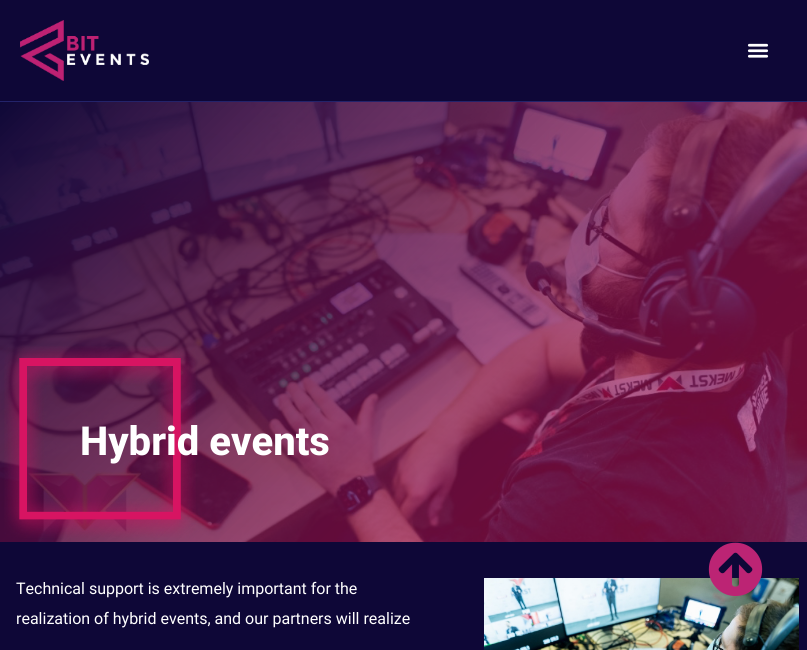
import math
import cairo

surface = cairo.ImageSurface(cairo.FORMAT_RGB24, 807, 650)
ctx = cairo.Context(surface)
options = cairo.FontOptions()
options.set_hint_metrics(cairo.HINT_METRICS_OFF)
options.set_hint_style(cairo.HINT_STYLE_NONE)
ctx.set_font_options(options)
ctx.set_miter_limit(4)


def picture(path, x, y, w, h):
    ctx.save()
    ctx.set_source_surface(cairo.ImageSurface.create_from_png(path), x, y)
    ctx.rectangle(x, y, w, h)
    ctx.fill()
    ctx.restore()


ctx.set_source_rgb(0.055, 0.031, 0.216)
ctx.paint()
ctx.set_source_rgb(0.137, 0.137, 0.416)
ctx.rectangle(0, 101, 807, 1)
ctx.fill()
picture("img1.png", 20, 20, 129, 61)
picture("img2.png", 747, 43, 22, 15)
picture("img3.png", 0, 102, 807, 440)
picture("img4.png", 4, 346, 192, 192)
ctx.select_font_face("Roboto ExtraBold")
ctx.set_font_size(40)
ctx.set_source_rgb(1, 1, 1)
ctx.move_to(80, 455)
ctx.show_text("Hybrid events")
ctx.select_font_face("Roboto")
ctx.set_font_size(16)
ctx.move_to(16, 594)
ctx.show_text("Technical support is extremely important for the")
ctx.move_to(16, 624)
ctx.show_text("realization of hybrid events, and our partners will realize")
picture("img5.png", 484, 578, 315, 72)
picture("img6.png", 708, 542, 55, 54)
surface.write_to_png("page.png")
